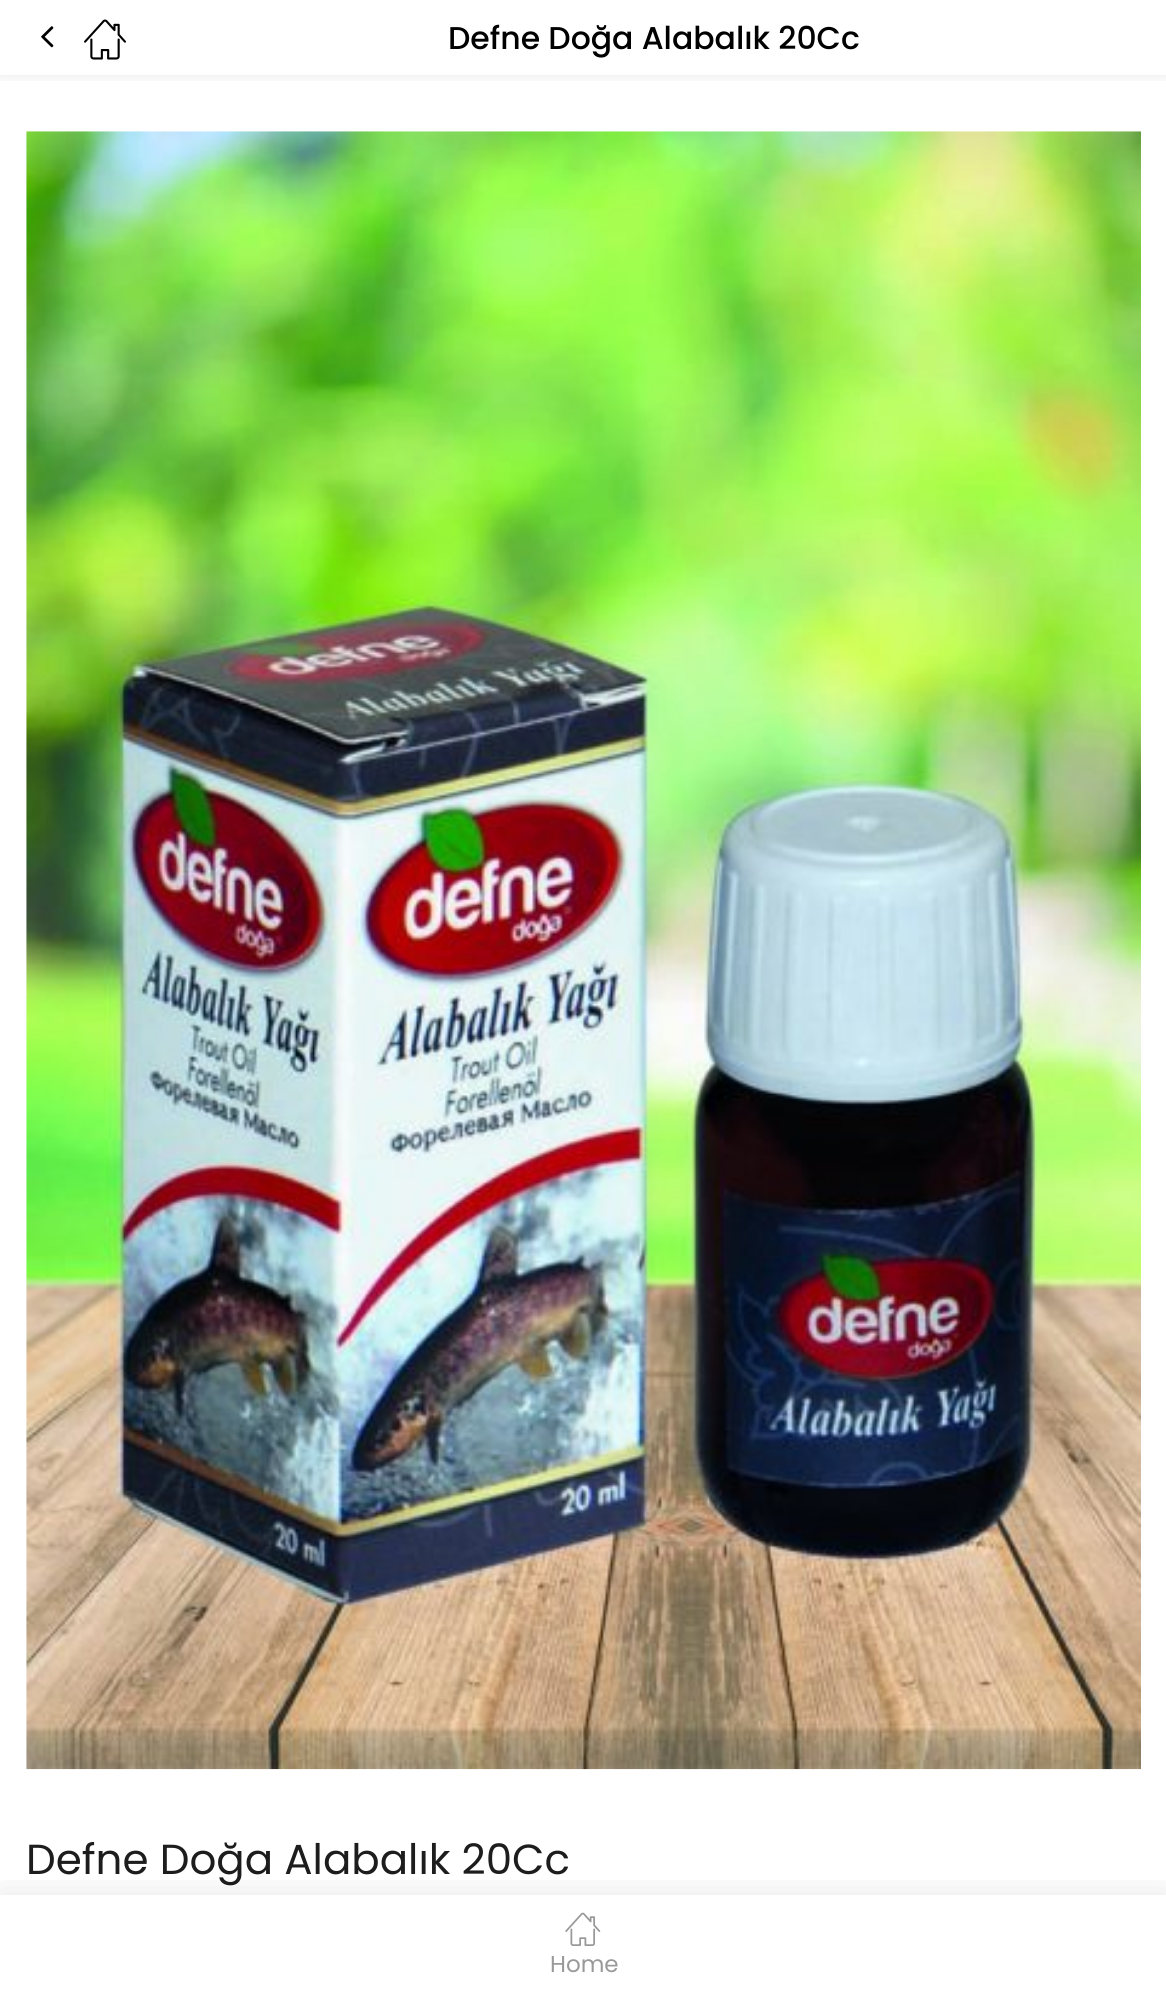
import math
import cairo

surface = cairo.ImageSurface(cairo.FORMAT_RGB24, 1166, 1990)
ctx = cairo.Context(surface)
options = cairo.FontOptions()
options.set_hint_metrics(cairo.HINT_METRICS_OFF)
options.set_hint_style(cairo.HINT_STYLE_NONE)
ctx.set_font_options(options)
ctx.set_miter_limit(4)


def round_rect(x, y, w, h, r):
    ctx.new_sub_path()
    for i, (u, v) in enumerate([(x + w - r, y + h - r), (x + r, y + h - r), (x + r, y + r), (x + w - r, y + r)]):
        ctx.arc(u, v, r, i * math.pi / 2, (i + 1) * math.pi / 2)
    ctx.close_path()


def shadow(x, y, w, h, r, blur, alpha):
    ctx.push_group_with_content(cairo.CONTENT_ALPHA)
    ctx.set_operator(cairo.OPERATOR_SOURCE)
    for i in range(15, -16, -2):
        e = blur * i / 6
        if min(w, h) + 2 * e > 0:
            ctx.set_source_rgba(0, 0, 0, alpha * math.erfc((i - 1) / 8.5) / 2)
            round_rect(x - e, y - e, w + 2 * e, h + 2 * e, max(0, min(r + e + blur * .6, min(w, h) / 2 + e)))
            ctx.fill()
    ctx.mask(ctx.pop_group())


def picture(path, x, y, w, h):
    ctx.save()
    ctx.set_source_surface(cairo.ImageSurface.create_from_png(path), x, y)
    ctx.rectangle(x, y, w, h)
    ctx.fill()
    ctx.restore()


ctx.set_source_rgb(1, 1, 1)
ctx.paint()
ctx.save()
ctx.rectangle(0, 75, 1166, 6)
ctx.clip()
ctx.set_source_rgb(0, 0, 0)
shadow(0, 0, 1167, 75, 0, 7, 0.1)
ctx.restore()
picture("img1.png", 41, 26, 13, 22)
picture("img2.png", 84, 19, 42, 41)
ctx.select_font_face("Poppins Medium")
ctx.set_font_size(31.5)
ctx.set_source_rgb(0, 0, 0)
ctx.move_to(448, 49)
ctx.show_text("Defne Doğa Alabalık 20Cc")
picture("img3.png", 26, 131, 1115, 1639)
ctx.select_font_face("Poppins")
ctx.set_font_size(42)
ctx.set_source_rgb(0.114, 0.114, 0.114)
ctx.move_to(26, 1874)
ctx.show_text("Defne Doğa Alabalık 20Cc")
ctx.save()
ctx.rectangle(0, 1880, 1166, 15)
ctx.clip()
ctx.set_source_rgb(0, 0, 0)
shadow(0, 1895, 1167, 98, 0, 17.5, 0.1)
ctx.restore()
picture("img4.png", 565, 1912, 36, 34)
ctx.set_font_size(23)
ctx.set_source_rgb(0.6, 0.6, 0.6)
ctx.move_to(550, 1972)
ctx.show_text("Home")
surface.write_to_png("page.png")
